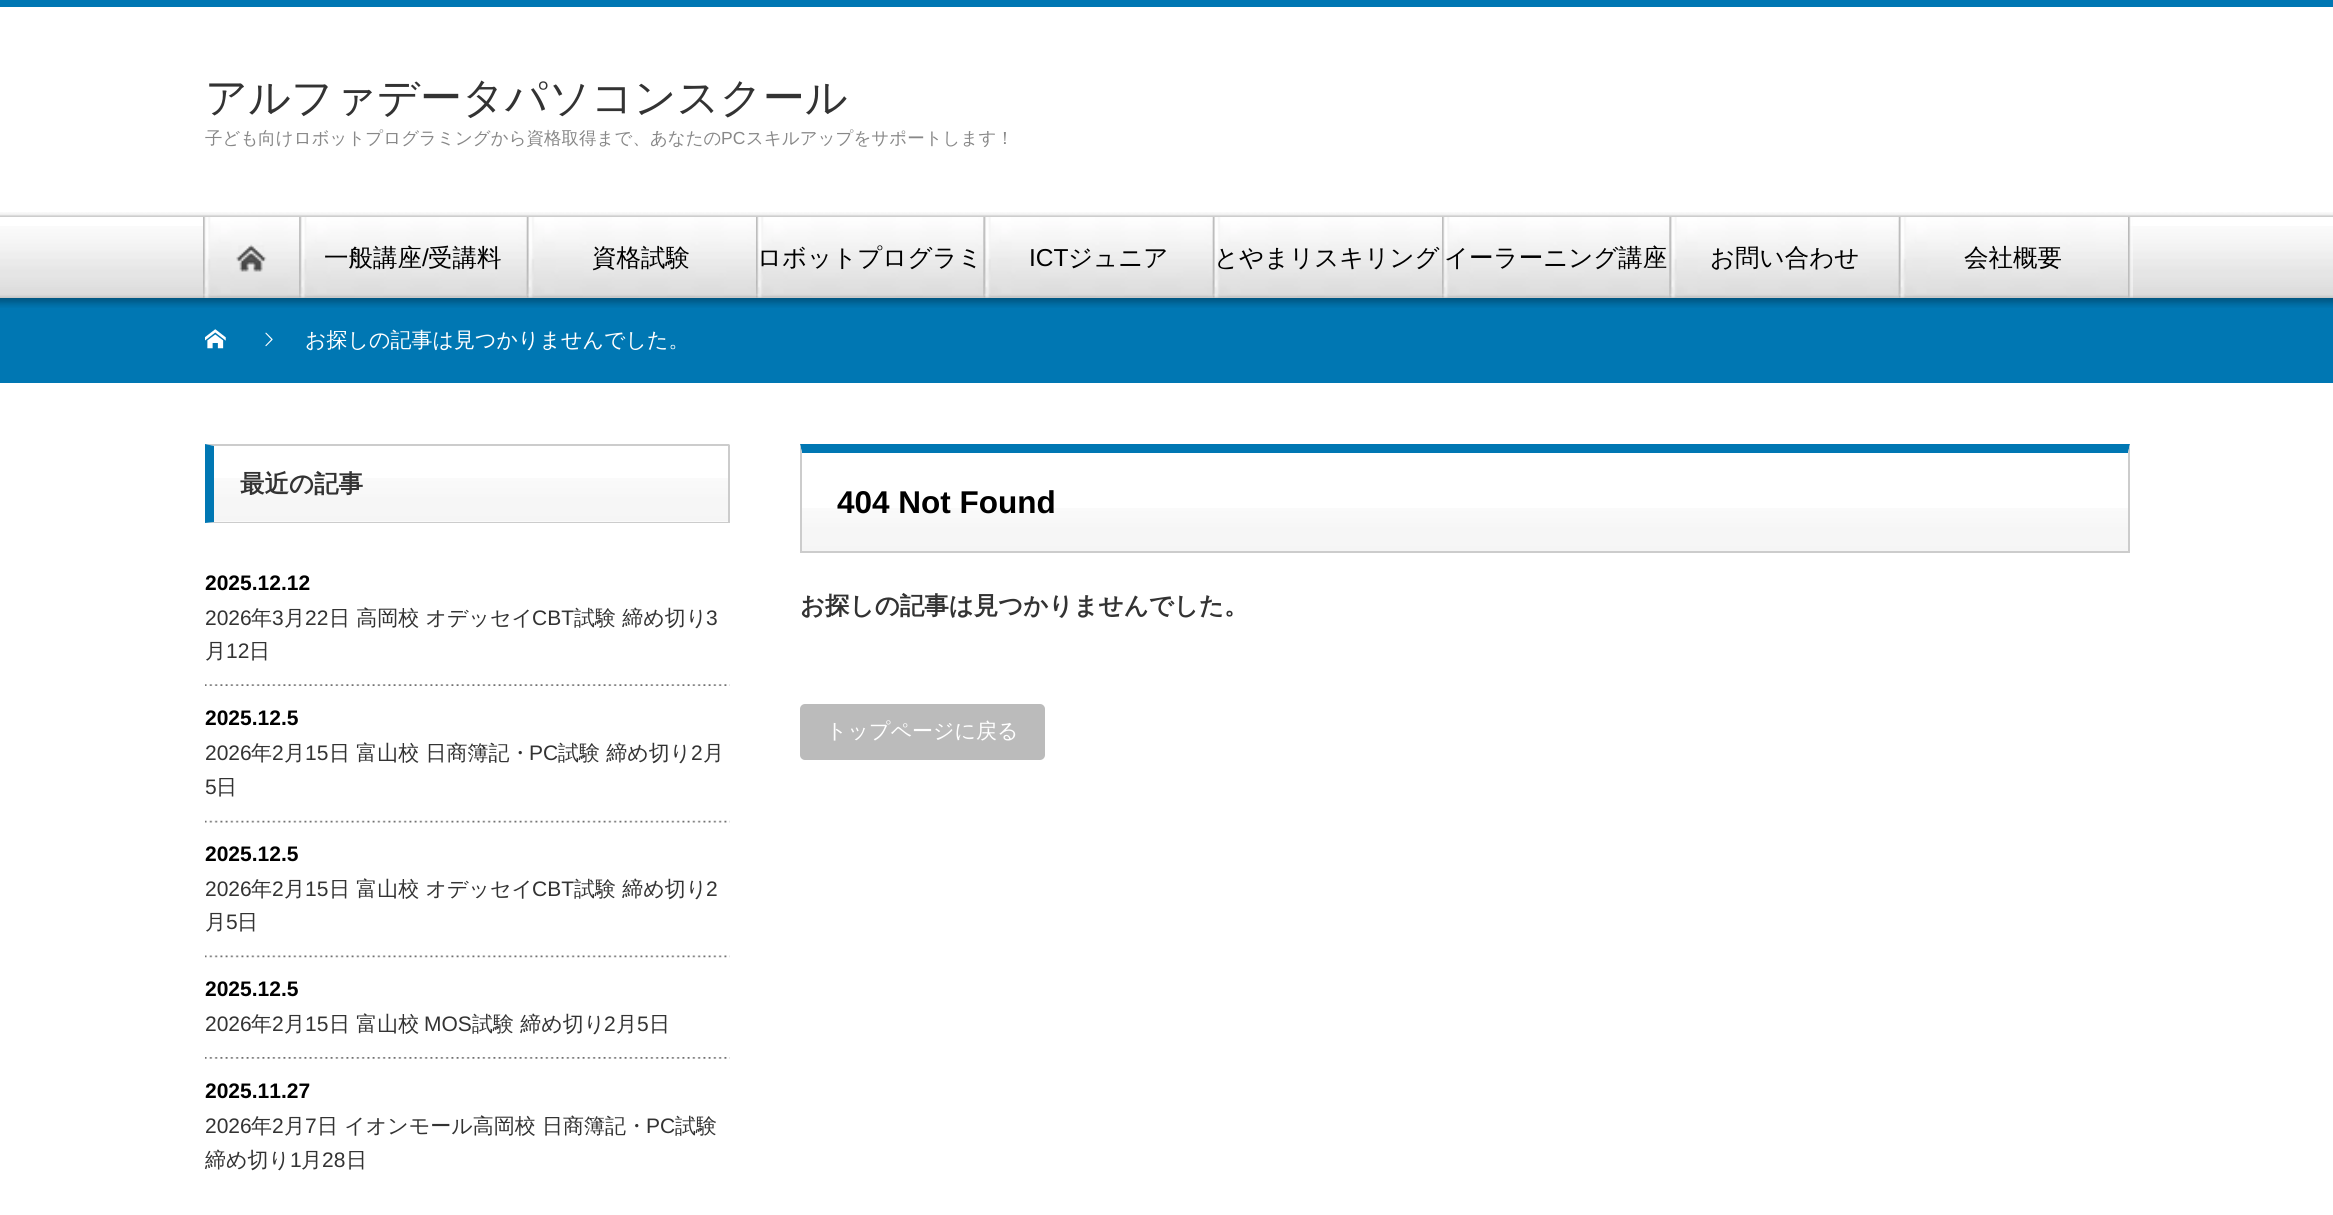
import math
import cairo

surface = cairo.ImageSurface(cairo.FORMAT_RGB24, 2333, 1215)
ctx = cairo.Context(surface)
options = cairo.FontOptions()
options.set_hint_metrics(cairo.HINT_METRICS_OFF)
options.set_hint_style(cairo.HINT_STYLE_NONE)
ctx.set_font_options(options)
ctx.set_miter_limit(4)


def round_rect(x, y, w, h, r):
    ctx.new_sub_path()
    for i, (u, v) in enumerate([(x + w - r, y + h - r), (x + r, y + h - r), (x + r, y + r), (x + w - r, y + r)]):
        ctx.arc(u, v, r, i * math.pi / 2, (i + 1) * math.pi / 2)
    ctx.close_path()


def picture(path, x, y, w, h):
    ctx.save()
    ctx.set_source_surface(cairo.ImageSurface.create_from_png(path), x, y)
    ctx.rectangle(x, y, w, h)
    ctx.fill()
    ctx.restore()


ctx.set_source_rgb(1, 1, 1)
ctx.paint()
picture("img1.png", 0, 226, 2333, 72)
ctx.set_source_rgb(0, 0.467, 0.702)
ctx.rectangle(0, 0, 2333, 7)
ctx.fill()
picture("img2.png", 0, 212, 2333, 5)
ctx.select_font_face("WenQuanYi Zen Hei Medium")
ctx.set_font_size(42)
ctx.set_source_rgb(0.2, 0.2, 0.2)
ctx.move_to(205, 112)
ctx.show_text("アルファデータパソコンスクール")
ctx.set_font_size(17.5)
ctx.set_source_rgb(0.533, 0.533, 0.533)
ctx.move_to(205, 144)
ctx.show_text("子ども向けロボットプログラミングから資格取得まで、あなたの")
ctx.select_font_face("Liberation Sans")
ctx.move_to(721, 144)
ctx.show_text("PC")
ctx.select_font_face("WenQuanYi Zen Hei Medium")
ctx.move_to(746, 144)
ctx.show_text("スキルアップをサポートします！")
ctx.set_source_rgb(0, 0.467, 0.702)
ctx.rectangle(0, 298, 2333, 85)
ctx.fill()
picture("img15.png", 0, 297, 2333, 11)
picture("img3.png", 203, 217, 97, 81)
picture("img4.png", 203, 217, 96, 81)
picture("img5.png", 236, 244, 31, 28)
picture("img6.png", 2128, 217, 5, 81)
picture("img7.png", 299, 217, 228, 81)
picture("img8.png", 299, 217, 228, 80)
ctx.set_font_size(24.5)
ctx.set_source_rgb(0, 0, 0)
ctx.move_to(324, 266)
ctx.show_text("一般講座")
ctx.select_font_face("Liberation Sans")
ctx.move_to(422, 266)
ctx.show_text("/")
ctx.select_font_face("WenQuanYi Zen Hei Medium")
ctx.move_to(428, 266)
ctx.show_text("受講料")
picture("img9.png", 526, 217, 230, 81)
picture("img10.png", 527, 217, 229, 80)
ctx.move_to(592, 266)
ctx.show_text("資格試験")
picture("img11.png", 756, 217, 228, 81)
picture("img12.png", 756, 217, 227, 80)
ctx.move_to(757, 266)
ctx.show_text("ロボットプログラミ")
picture("img13.png", 983, 217, 230, 81)
picture("img14.png", 983, 217, 230, 80)
ctx.select_font_face("Liberation Sans")
ctx.move_to(1029, 266)
ctx.show_text("ICT")
ctx.select_font_face("WenQuanYi Zen Hei Medium")
ctx.move_to(1068, 266)
ctx.show_text("ジュニア")
picture("img9.png", 1212, 217, 230, 81)
picture("img10.png", 1213, 217, 229, 80)
ctx.move_to(1214, 266)
ctx.show_text("とやまリスキリング")
picture("img11.png", 1442, 217, 228, 81)
picture("img12.png", 1442, 217, 227, 80)
ctx.move_to(1444, 266)
ctx.show_text("イーラーニング講座")
picture("img13.png", 1669, 217, 230, 81)
picture("img14.png", 1669, 217, 230, 80)
ctx.move_to(1710, 266)
ctx.show_text("お問い合わせ")
picture("img9.png", 1898, 217, 230, 81)
picture("img10.png", 1899, 217, 229, 80)
ctx.move_to(1964, 266)
ctx.show_text("会社概要")
picture("img16.png", 205, 329, 21, 20)
picture("img17.png", 265, 332, 8, 15)
ctx.set_font_size(21)
ctx.set_source_rgb(1, 1, 1)
ctx.move_to(305, 347)
ctx.show_text("お探しの記事は見つかりませんでした。")
picture("img18.png", 214, 478, 514, 44)
ctx.set_source_rgb(0.8, 0.8, 0.8)
ctx.new_path()
ctx.move_to(205, 444)
ctx.line_to(730, 444)
ctx.line_to(728, 446)
ctx.line_to(214, 446)
ctx.close_path()
ctx.fill()
ctx.rectangle(728, 445, 2, 78)
ctx.fill()
ctx.new_path()
ctx.move_to(730, 523)
ctx.line_to(205, 523)
ctx.line_to(214, 522)
ctx.line_to(728, 522)
ctx.close_path()
ctx.fill()
ctx.set_source_rgb(0, 0.467, 0.702)
ctx.new_path()
ctx.move_to(205, 523)
ctx.line_to(205, 444)
ctx.line_to(214, 446)
ctx.line_to(214, 522)
ctx.close_path()
ctx.fill()
ctx.select_font_face("WenQuanYi Zen Hei", cairo.FONT_SLANT_NORMAL, cairo.FONT_WEIGHT_BOLD)
ctx.set_font_size(24.5)
ctx.set_source_rgb(0.2, 0.2, 0.2)
ctx.move_to(240, 492)
ctx.show_text("最近の記事")
picture("img19.png", 205, 684, 525, 2)
ctx.select_font_face("Liberation Sans", cairo.FONT_SLANT_NORMAL, cairo.FONT_WEIGHT_BOLD)
ctx.set_font_size(21)
ctx.set_source_rgb(0, 0, 0)
ctx.move_to(205, 590)
ctx.show_text("2025.12.12")
ctx.select_font_face("Liberation Sans")
ctx.set_source_rgb(0.2, 0.2, 0.2)
ctx.move_to(205, 625)
ctx.show_text("2026")
ctx.select_font_face("WenQuanYi Zen Hei Medium")
ctx.move_to(251, 625)
ctx.show_text("年")
ctx.select_font_face("Liberation Sans")
ctx.move_to(272, 625)
ctx.show_text("3")
ctx.select_font_face("WenQuanYi Zen Hei Medium")
ctx.move_to(284, 625)
ctx.show_text("月")
ctx.select_font_face("Liberation Sans")
ctx.move_to(305, 625)
ctx.show_text("22")
ctx.select_font_face("WenQuanYi Zen Hei Medium")
ctx.move_to(329, 625)
ctx.show_text("日 高岡校 オデッセイ")
ctx.select_font_face("Liberation Sans")
ctx.move_to(532, 625)
ctx.show_text("CBT")
ctx.select_font_face("WenQuanYi Zen Hei Medium")
ctx.move_to(574, 625)
ctx.show_text("試験 締め切り")
ctx.select_font_face("Liberation Sans")
ctx.move_to(706, 625)
ctx.show_text("3")
ctx.select_font_face("WenQuanYi Zen Hei Medium")
ctx.move_to(205, 658)
ctx.show_text("月")
ctx.select_font_face("Liberation Sans")
ctx.move_to(226, 658)
ctx.show_text("12")
ctx.select_font_face("WenQuanYi Zen Hei Medium")
ctx.move_to(249, 658)
ctx.show_text("日")
picture("img20.png", 205, 820, 525, 3)
ctx.select_font_face("Liberation Sans", cairo.FONT_SLANT_NORMAL, cairo.FONT_WEIGHT_BOLD)
ctx.set_source_rgb(0, 0, 0)
ctx.move_to(205, 725)
ctx.show_text("2025.12.5")
ctx.select_font_face("Liberation Sans")
ctx.set_source_rgb(0.2, 0.2, 0.2)
ctx.move_to(205, 760)
ctx.show_text("2026")
ctx.select_font_face("WenQuanYi Zen Hei Medium")
ctx.move_to(251, 760)
ctx.show_text("年")
ctx.select_font_face("Liberation Sans")
ctx.move_to(272, 760)
ctx.show_text("2")
ctx.select_font_face("WenQuanYi Zen Hei Medium")
ctx.move_to(284, 760)
ctx.show_text("月")
ctx.select_font_face("Liberation Sans")
ctx.move_to(305, 760)
ctx.show_text("15")
ctx.select_font_face("WenQuanYi Zen Hei Medium")
ctx.move_to(329, 760)
ctx.show_text("日 富山校 日商簿記・")
ctx.select_font_face("Liberation Sans")
ctx.move_to(529, 760)
ctx.show_text("PC")
ctx.select_font_face("WenQuanYi Zen Hei Medium")
ctx.move_to(558, 760)
ctx.show_text("試験 締め切り")
ctx.select_font_face("Liberation Sans")
ctx.move_to(691, 760)
ctx.show_text("2")
ctx.select_font_face("WenQuanYi Zen Hei Medium")
ctx.move_to(703, 760)
ctx.show_text("月")
ctx.select_font_face("Liberation Sans")
ctx.move_to(205, 794)
ctx.show_text("5")
ctx.select_font_face("WenQuanYi Zen Hei Medium")
ctx.move_to(216, 794)
ctx.show_text("日")
picture("img21.png", 205, 955, 525, 3)
ctx.select_font_face("Liberation Sans", cairo.FONT_SLANT_NORMAL, cairo.FONT_WEIGHT_BOLD)
ctx.set_source_rgb(0, 0, 0)
ctx.move_to(205, 861)
ctx.show_text("2025.12.5")
ctx.select_font_face("Liberation Sans")
ctx.set_source_rgb(0.2, 0.2, 0.2)
ctx.move_to(205, 896)
ctx.show_text("2026")
ctx.select_font_face("WenQuanYi Zen Hei Medium")
ctx.move_to(251, 896)
ctx.show_text("年")
ctx.select_font_face("Liberation Sans")
ctx.move_to(272, 896)
ctx.show_text("2")
ctx.select_font_face("WenQuanYi Zen Hei Medium")
ctx.move_to(284, 896)
ctx.show_text("月")
ctx.select_font_face("Liberation Sans")
ctx.move_to(305, 896)
ctx.show_text("15")
ctx.select_font_face("WenQuanYi Zen Hei Medium")
ctx.move_to(329, 896)
ctx.show_text("日 富山校 オデッセイ")
ctx.select_font_face("Liberation Sans")
ctx.move_to(532, 896)
ctx.show_text("CBT")
ctx.select_font_face("WenQuanYi Zen Hei Medium")
ctx.move_to(574, 896)
ctx.show_text("試験 締め切り")
ctx.select_font_face("Liberation Sans")
ctx.move_to(706, 896)
ctx.show_text("2")
ctx.select_font_face("WenQuanYi Zen Hei Medium")
ctx.move_to(205, 929)
ctx.show_text("月")
ctx.select_font_face("Liberation Sans")
ctx.move_to(226, 929)
ctx.show_text("5")
ctx.select_font_face("WenQuanYi Zen Hei Medium")
ctx.move_to(237, 929)
ctx.show_text("日")
picture("img22.png", 205, 1057, 525, 2)
ctx.select_font_face("Liberation Sans", cairo.FONT_SLANT_NORMAL, cairo.FONT_WEIGHT_BOLD)
ctx.set_source_rgb(0, 0, 0)
ctx.move_to(205, 996)
ctx.show_text("2025.12.5")
ctx.select_font_face("Liberation Sans")
ctx.set_source_rgb(0.2, 0.2, 0.2)
ctx.move_to(205, 1031)
ctx.show_text("2026")
ctx.select_font_face("WenQuanYi Zen Hei Medium")
ctx.move_to(251, 1031)
ctx.show_text("年")
ctx.select_font_face("Liberation Sans")
ctx.move_to(272, 1031)
ctx.show_text("2")
ctx.select_font_face("WenQuanYi Zen Hei Medium")
ctx.move_to(284, 1031)
ctx.show_text("月")
ctx.select_font_face("Liberation Sans")
ctx.move_to(305, 1031)
ctx.show_text("15")
ctx.select_font_face("WenQuanYi Zen Hei Medium")
ctx.move_to(329, 1031)
ctx.show_text("日 富山校")
ctx.select_font_face("Liberation Sans")
ctx.move_to(424, 1031)
ctx.show_text("MOS")
ctx.select_font_face("WenQuanYi Zen Hei Medium")
ctx.move_to(472, 1031)
ctx.show_text("試験 締め切り")
ctx.select_font_face("Liberation Sans")
ctx.move_to(604, 1031)
ctx.show_text("2")
ctx.select_font_face("WenQuanYi Zen Hei Medium")
ctx.move_to(616, 1031)
ctx.show_text("月")
ctx.select_font_face("Liberation Sans")
ctx.move_to(637, 1031)
ctx.show_text("5")
ctx.select_font_face("WenQuanYi Zen Hei Medium")
ctx.move_to(649, 1031)
ctx.show_text("日")
ctx.select_font_face("Liberation Sans", cairo.FONT_SLANT_NORMAL, cairo.FONT_WEIGHT_BOLD)
ctx.set_source_rgb(0, 0, 0)
ctx.move_to(205, 1098)
ctx.show_text("2025.11.27")
ctx.select_font_face("Liberation Sans")
ctx.set_source_rgb(0.2, 0.2, 0.2)
ctx.move_to(205, 1133)
ctx.show_text("2026")
ctx.select_font_face("WenQuanYi Zen Hei Medium")
ctx.move_to(251, 1133)
ctx.show_text("年")
ctx.select_font_face("Liberation Sans")
ctx.move_to(272, 1133)
ctx.show_text("2")
ctx.select_font_face("WenQuanYi Zen Hei Medium")
ctx.move_to(284, 1133)
ctx.show_text("月")
ctx.select_font_face("Liberation Sans")
ctx.move_to(305, 1133)
ctx.show_text("7")
ctx.select_font_face("WenQuanYi Zen Hei Medium")
ctx.move_to(317, 1133)
ctx.show_text("日 イオンモール高岡校 日商簿記・")
ctx.select_font_face("Liberation Sans")
ctx.move_to(646, 1133)
ctx.show_text("PC")
ctx.select_font_face("WenQuanYi Zen Hei Medium")
ctx.move_to(675, 1133)
ctx.show_text("試験")
ctx.move_to(205, 1167)
ctx.show_text("締め切り")
ctx.select_font_face("Liberation Sans")
ctx.move_to(290, 1167)
ctx.show_text("1")
ctx.select_font_face("WenQuanYi Zen Hei Medium")
ctx.move_to(301, 1167)
ctx.show_text("月")
ctx.select_font_face("Liberation Sans")
ctx.move_to(322, 1167)
ctx.show_text("28")
ctx.select_font_face("WenQuanYi Zen Hei Medium")
ctx.move_to(346, 1167)
ctx.show_text("日")
picture("img23.png", 802, 508, 1326, 43)
ctx.set_source_rgb(0, 0.467, 0.702)
ctx.new_path()
ctx.move_to(800, 444)
ctx.line_to(2130, 444)
ctx.line_to(2128, 453)
ctx.line_to(802, 453)
ctx.close_path()
ctx.fill()
ctx.set_source_rgb(0.8, 0.8, 0.8)
ctx.new_path()
ctx.move_to(2130, 444)
ctx.line_to(2130, 553)
ctx.line_to(2128, 551)
ctx.line_to(2128, 453)
ctx.close_path()
ctx.fill()
ctx.rectangle(800, 551, 1330, 2)
ctx.fill()
ctx.new_path()
ctx.move_to(800, 553)
ctx.line_to(800, 444)
ctx.line_to(802, 453)
ctx.line_to(802, 551)
ctx.close_path()
ctx.fill()
ctx.select_font_face("Liberation Sans", cairo.FONT_SLANT_NORMAL, cairo.FONT_WEIGHT_BOLD)
ctx.set_font_size(31.5)
ctx.set_source_rgb(0, 0, 0)
ctx.move_to(837, 513)
ctx.show_text("404 Not Found")
ctx.select_font_face("WenQuanYi Zen Hei", cairo.FONT_SLANT_NORMAL, cairo.FONT_WEIGHT_BOLD)
ctx.set_font_size(24.5)
ctx.set_source_rgb(0.2, 0.2, 0.2)
ctx.move_to(800, 614)
ctx.show_text("お探しの記事は見つかりませんでした。")
ctx.set_source_rgb(0.733, 0.733, 0.733)
round_rect(800, 704, 245, 56, 5)
ctx.fill()
ctx.select_font_face("WenQuanYi Zen Hei Medium")
ctx.set_font_size(21)
ctx.set_source_rgb(1, 1, 1)
ctx.move_to(826, 738)
ctx.show_text("トップページに戻る")
surface.write_to_png("page.png")
